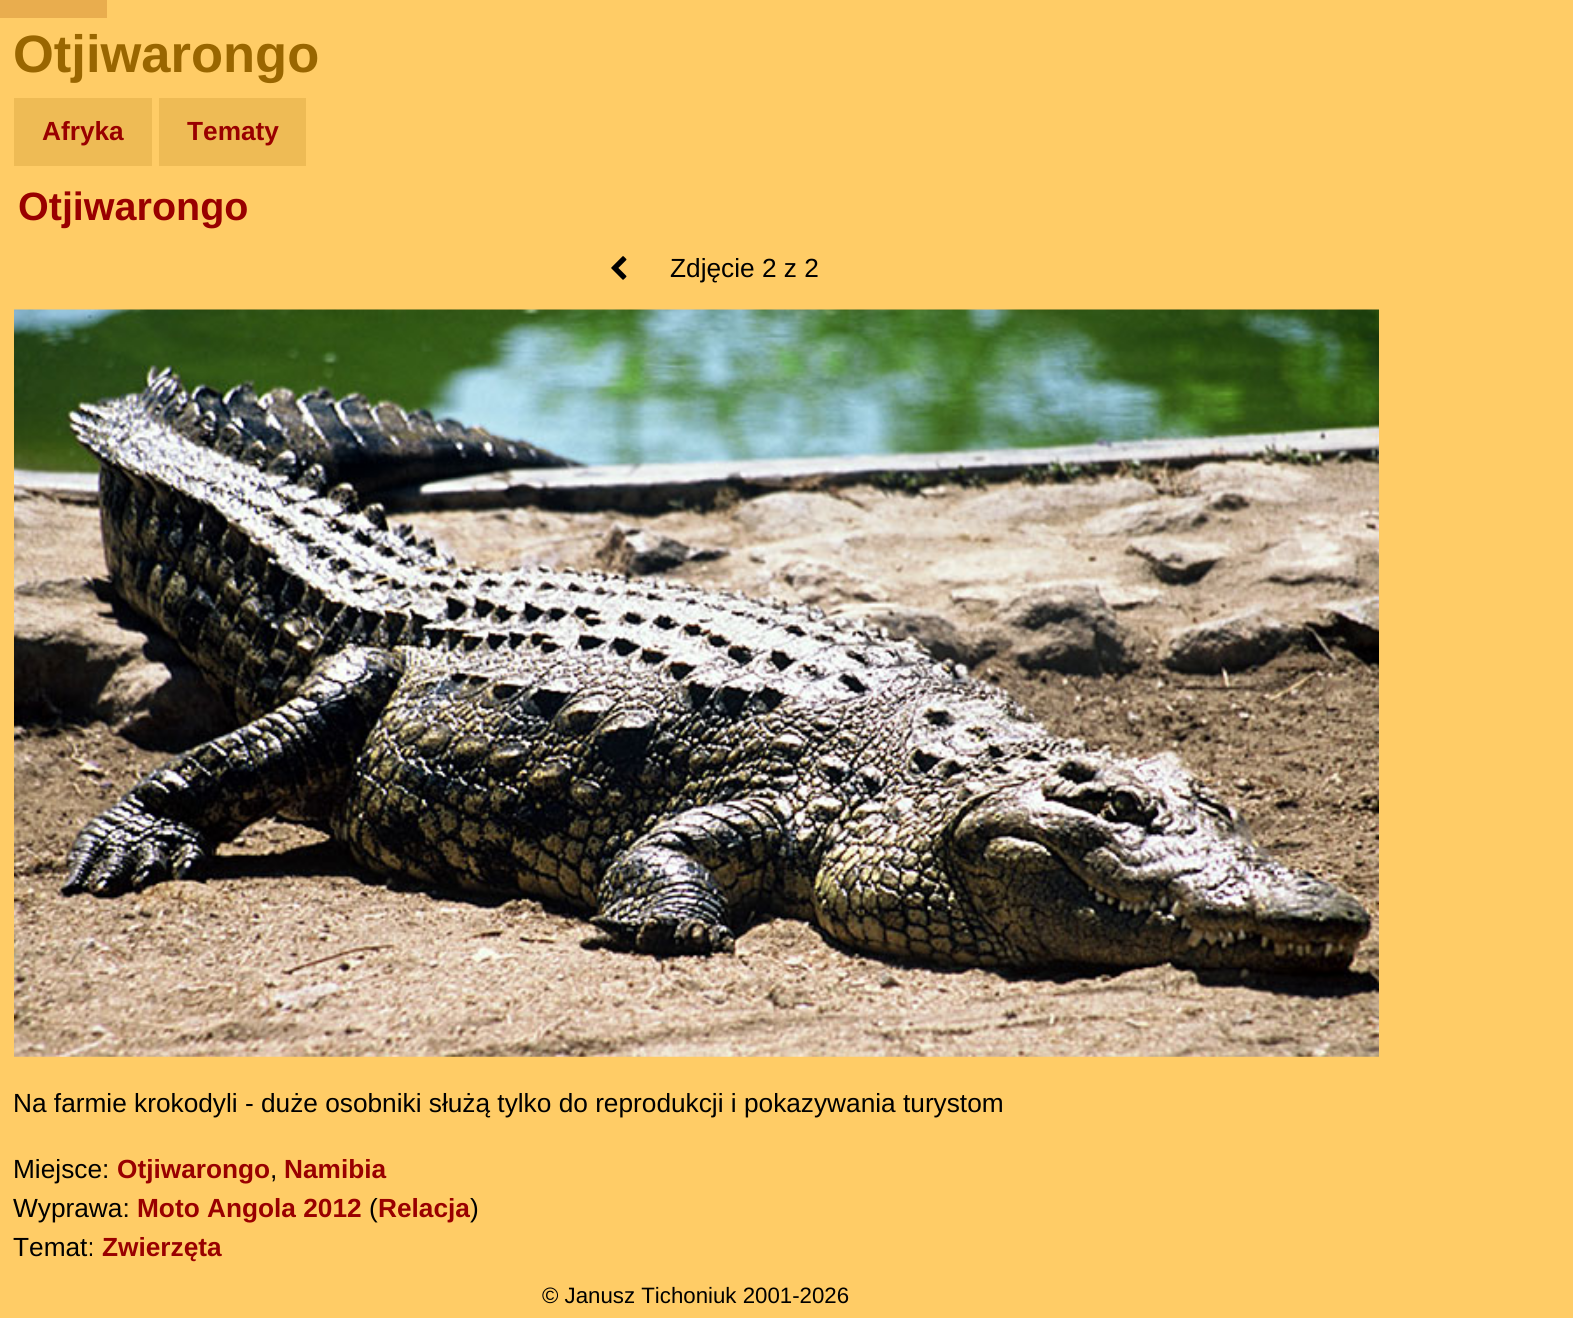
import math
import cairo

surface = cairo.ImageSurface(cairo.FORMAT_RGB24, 1573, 1318)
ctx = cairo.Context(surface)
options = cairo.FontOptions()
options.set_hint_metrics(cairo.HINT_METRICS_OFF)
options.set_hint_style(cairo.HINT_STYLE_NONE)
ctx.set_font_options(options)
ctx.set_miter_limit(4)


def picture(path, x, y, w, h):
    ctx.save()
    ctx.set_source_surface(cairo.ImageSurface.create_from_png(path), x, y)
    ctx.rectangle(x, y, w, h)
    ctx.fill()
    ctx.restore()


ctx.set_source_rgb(1, 0.8, 0.4)
ctx.paint()
ctx.set_source_rgb(0.914, 0.678, 0.306)
ctx.rectangle(0, 0, 107, 18)
ctx.fill()
ctx.select_font_face("Liberation Sans", cairo.FONT_SLANT_NORMAL, cairo.FONT_WEIGHT_BOLD)
ctx.set_font_size(52.5)
ctx.set_source_rgb(0.6, 0.4, 0)
ctx.move_to(13, 72)
ctx.show_text("Otjiwarongo")
ctx.set_source_rgb(0.933, 0.733, 0.333)
ctx.rectangle(14, 98, 138, 68)
ctx.fill()
ctx.set_font_size(26.25)
ctx.set_source_rgb(0.6, 0, 0)
ctx.move_to(42, 140)
ctx.show_text("Afryka")
ctx.set_source_rgb(0.933, 0.733, 0.333)
ctx.rectangle(159, 98, 147, 68)
ctx.fill()
ctx.set_source_rgb(0.6, 0, 0)
ctx.move_to(187, 140)
ctx.show_text("Tematy")
ctx.set_font_size(39.5)
ctx.move_to(18, 220)
ctx.show_text("Otjiwarongo")
picture("img1.png", 611, 256, 16, 24)
ctx.select_font_face("Liberation Sans")
ctx.set_font_size(26.25)
ctx.set_source_rgb(0, 0, 0)
ctx.move_to(670, 277)
ctx.show_text("Zdjęcie 2 z 2")
picture("img2.png", 14, 309, 1365, 748)
ctx.move_to(13, 1112)
ctx.show_text("Na farmie krokodyli - duże osobniki służą tylko do reprodukcji i pokazywania turystom")
ctx.move_to(13, 1178)
ctx.show_text("Miejsce:")
ctx.select_font_face("Liberation Sans", cairo.FONT_SLANT_NORMAL, cairo.FONT_WEIGHT_BOLD)
ctx.set_source_rgb(0.6, 0, 0)
ctx.move_to(117, 1178)
ctx.show_text("Otjiwarongo")
ctx.select_font_face("Liberation Sans")
ctx.set_source_rgb(0, 0, 0)
ctx.move_to(270, 1178)
ctx.show_text(",")
ctx.select_font_face("Liberation Sans", cairo.FONT_SLANT_NORMAL, cairo.FONT_WEIGHT_BOLD)
ctx.set_source_rgb(0.6, 0, 0)
ctx.move_to(284, 1178)
ctx.show_text("Namibia")
ctx.select_font_face("Liberation Sans")
ctx.set_source_rgb(0, 0, 0)
ctx.move_to(13, 1217)
ctx.show_text("Wyprawa:")
ctx.select_font_face("Liberation Sans", cairo.FONT_SLANT_NORMAL, cairo.FONT_WEIGHT_BOLD)
ctx.set_source_rgb(0.6, 0, 0)
ctx.move_to(137, 1217)
ctx.show_text("Moto Angola 2012")
ctx.select_font_face("Liberation Sans")
ctx.set_source_rgb(0, 0, 0)
ctx.move_to(369, 1217)
ctx.show_text("(")
ctx.select_font_face("Liberation Sans", cairo.FONT_SLANT_NORMAL, cairo.FONT_WEIGHT_BOLD)
ctx.set_source_rgb(0.6, 0, 0)
ctx.move_to(378, 1217)
ctx.show_text("Relacja")
ctx.select_font_face("Liberation Sans")
ctx.set_source_rgb(0, 0, 0)
ctx.move_to(470, 1217)
ctx.show_text(")")
ctx.move_to(13, 1256)
ctx.show_text("Temat:")
ctx.select_font_face("Liberation Sans", cairo.FONT_SLANT_NORMAL, cairo.FONT_WEIGHT_BOLD)
ctx.set_source_rgb(0.6, 0, 0)
ctx.move_to(102, 1256)
ctx.show_text("Zwierzęta")
ctx.select_font_face("Liberation Sans")
ctx.set_font_size(22.25)
ctx.set_source_rgb(0, 0, 0)
ctx.move_to(542, 1303)
ctx.show_text("© Janusz Tichoniuk 2001-2026")
surface.write_to_png("page.png")
